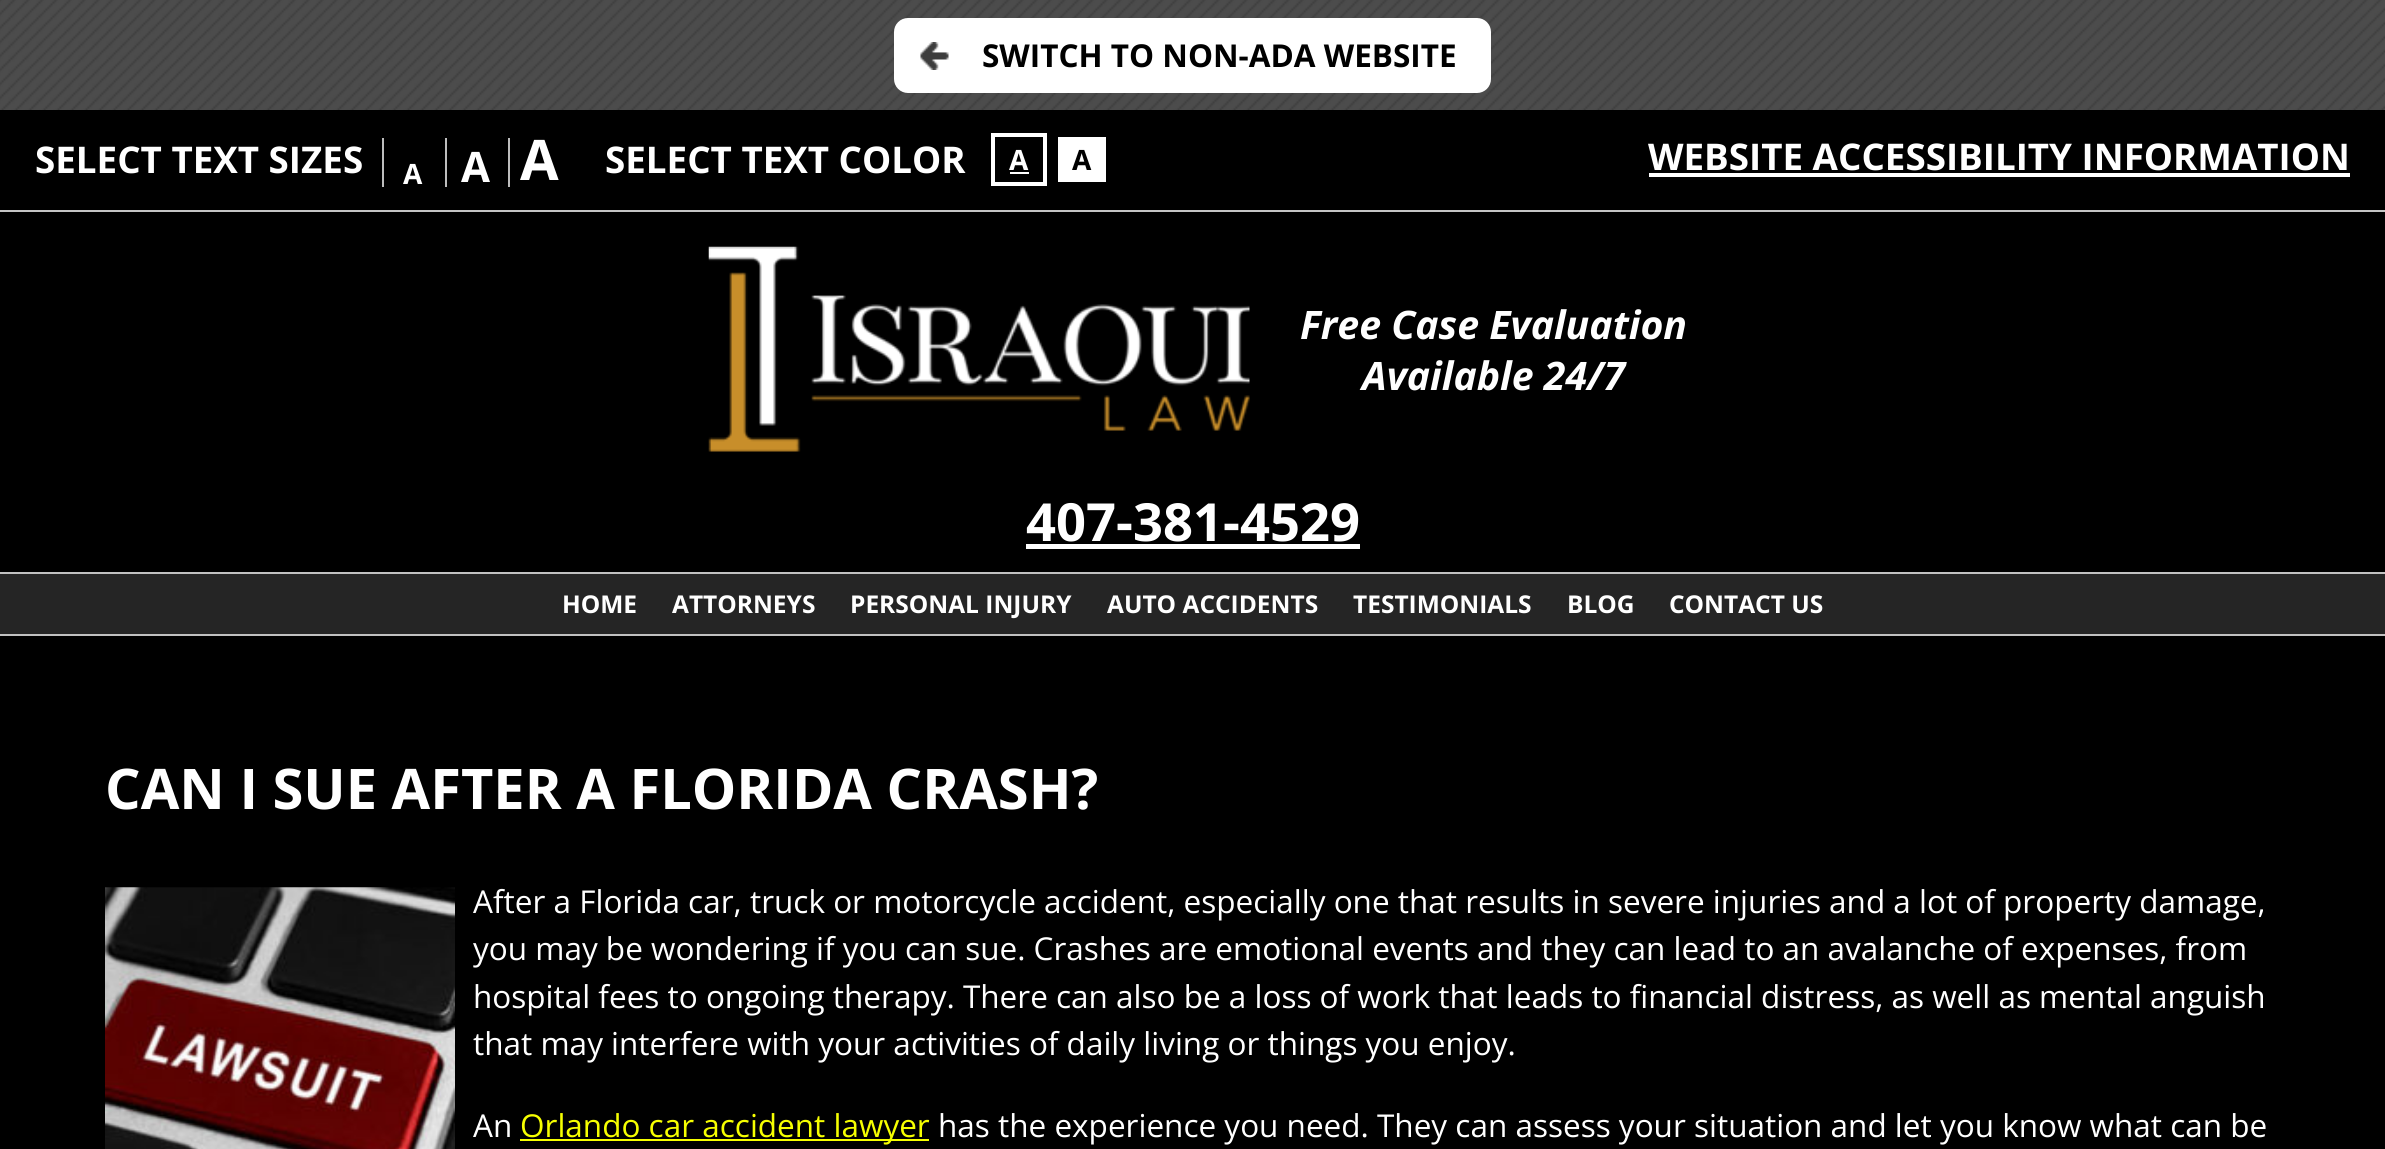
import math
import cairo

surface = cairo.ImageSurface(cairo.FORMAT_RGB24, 2385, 1149)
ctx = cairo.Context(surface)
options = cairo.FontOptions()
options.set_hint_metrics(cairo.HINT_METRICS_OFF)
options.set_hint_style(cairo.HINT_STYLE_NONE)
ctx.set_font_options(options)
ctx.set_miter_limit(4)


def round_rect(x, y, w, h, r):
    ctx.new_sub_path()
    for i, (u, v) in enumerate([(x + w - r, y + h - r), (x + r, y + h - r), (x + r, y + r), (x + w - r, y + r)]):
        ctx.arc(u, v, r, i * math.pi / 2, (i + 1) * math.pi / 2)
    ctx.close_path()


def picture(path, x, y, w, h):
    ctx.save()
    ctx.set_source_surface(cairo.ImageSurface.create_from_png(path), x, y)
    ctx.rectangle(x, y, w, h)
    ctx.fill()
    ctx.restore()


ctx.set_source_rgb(0, 0, 0)
ctx.paint()
picture("img1.png", 0, 0, 2385, 110)
ctx.set_source_rgb(1, 1, 1)
round_rect(894, 18, 597, 75, 14)
ctx.fill()
picture("img2.png", 920, 42, 29, 28)
ctx.select_font_face("Open Sans", cairo.FONT_SLANT_NORMAL, cairo.FONT_WEIGHT_BOLD)
ctx.set_font_size(31.5)
ctx.set_source_rgb(0, 0, 0)
ctx.move_to(982, 67)
ctx.show_text("SWITCH TO NON-ADA WEBSITE")
ctx.set_source_rgb(0.769, 0.769, 0.769)
ctx.rectangle(0, 210, 2385, 2)
ctx.fill()
ctx.set_font_size(36.75)
ctx.set_source_rgb(1, 1, 1)
ctx.move_to(35, 173)
ctx.show_text("SELECT TEXT SIZES")
ctx.set_source_rgb(0.741, 0.741, 0.741)
ctx.rectangle(382, 138, 2, 49)
ctx.fill()
ctx.set_font_size(28)
ctx.set_source_rgb(1, 1, 1)
ctx.move_to(403, 184)
ctx.show_text("A")
ctx.set_source_rgb(0.741, 0.741, 0.741)
ctx.rectangle(445, 138, 2, 49)
ctx.fill()
ctx.set_font_size(42)
ctx.set_source_rgb(1, 1, 1)
ctx.move_to(461, 182)
ctx.show_text("A")
ctx.set_source_rgb(0.741, 0.741, 0.741)
ctx.rectangle(508, 138, 2, 49)
ctx.fill()
ctx.set_font_size(56)
ctx.set_source_rgb(1, 1, 1)
ctx.move_to(520, 180)
ctx.show_text("A")
ctx.set_font_size(36.75)
ctx.move_to(605, 173)
ctx.show_text("SELECT TEXT COLOR")
ctx.rectangle(993, 135, 52, 49)
ctx.set_line_width(4)
ctx.stroke()
ctx.set_font_size(28)
ctx.move_to(1009, 170)
ctx.show_text("A")
ctx.rectangle(1010, 172, 19, 2)
ctx.fill()
ctx.rectangle(1058, 137, 48, 45)
ctx.fill()
ctx.set_source_rgb(0, 0, 0)
ctx.move_to(1072, 170)
ctx.show_text("A")
ctx.set_font_size(36.75)
ctx.set_source_rgb(1, 1, 1)
ctx.move_to(1648, 170)
ctx.show_text("WEBSITE ACCESSIBILITY INFORMATION")
ctx.rectangle(1649, 173, 701, 4)
ctx.fill()
picture("img3.png", 708, 246, 542, 206)
ctx.select_font_face("Open Sans", cairo.FONT_SLANT_ITALIC, cairo.FONT_WEIGHT_BOLD)
ctx.set_font_size(39.25)
ctx.move_to(1300, 339)
ctx.show_text("Free Case Evaluation")
ctx.move_to(1362, 390)
ctx.show_text("Available 24/7")
ctx.select_font_face("Open Sans", cairo.FONT_SLANT_NORMAL, cairo.FONT_WEIGHT_BOLD)
ctx.set_font_size(52.5)
ctx.move_to(1026, 541)
ctx.show_text("407-381-4529")
ctx.rectangle(1026, 544, 334, 5)
ctx.fill()
ctx.set_source_rgb(0.145, 0.145, 0.145)
ctx.rectangle(0, 574, 2385, 60)
ctx.fill()
ctx.set_source_rgb(0.757, 0.757, 0.757)
ctx.rectangle(0, 572, 2385, 2)
ctx.fill()
ctx.rectangle(0, 634, 2385, 2)
ctx.fill()
ctx.set_font_size(24.5)
ctx.set_source_rgb(1, 1, 1)
ctx.move_to(562, 613)
ctx.show_text("HOME")
ctx.move_to(672, 613)
ctx.show_text("ATTORNEYS")
ctx.move_to(850, 613)
ctx.show_text("PERSONAL INJURY")
ctx.move_to(1107, 613)
ctx.show_text("AUTO ACCIDENTS")
ctx.move_to(1353, 613)
ctx.show_text("TESTIMONIALS")
ctx.move_to(1567, 613)
ctx.show_text("BLOG")
ctx.move_to(1669, 613)
ctx.show_text("CONTACT US")
ctx.set_font_size(56)
ctx.move_to(105, 809)
ctx.show_text("CAN I SUE AFTER A FLORIDA CRASH?")
picture("img4.png", 105, 887, 350, 262)
ctx.select_font_face("Open Sans")
ctx.set_font_size(31.5)
ctx.move_to(473, 913)
ctx.show_text("After a Florida car, truck or motorcycle accident, especially one that results in severe injuries and a lot of property damage,")
ctx.move_to(473, 960)
ctx.show_text("you may be wondering if you can sue. Crashes are emotional events and they can lead to an avalanche of expenses, from")
ctx.move_to(473, 1008)
ctx.show_text("hospital fees to ongoing therapy. There can also be a loss of work that leads to financial distress, as well as mental anguish")
ctx.move_to(473, 1055)
ctx.show_text("that may interfere with your activities of daily living or things you enjoy.")
ctx.move_to(473, 1137)
ctx.show_text("An")
ctx.set_source_rgb(0.961, 1, 0)
ctx.rectangle(520, 1139, 409, 2)
ctx.fill()
ctx.move_to(520, 1137)
ctx.show_text("Orlando car accident lawyer")
ctx.set_source_rgb(1, 1, 1)
ctx.move_to(938, 1137)
ctx.show_text("has the experience you need. They can assess your situation and let you know what can be")
surface.write_to_png("page.png")
